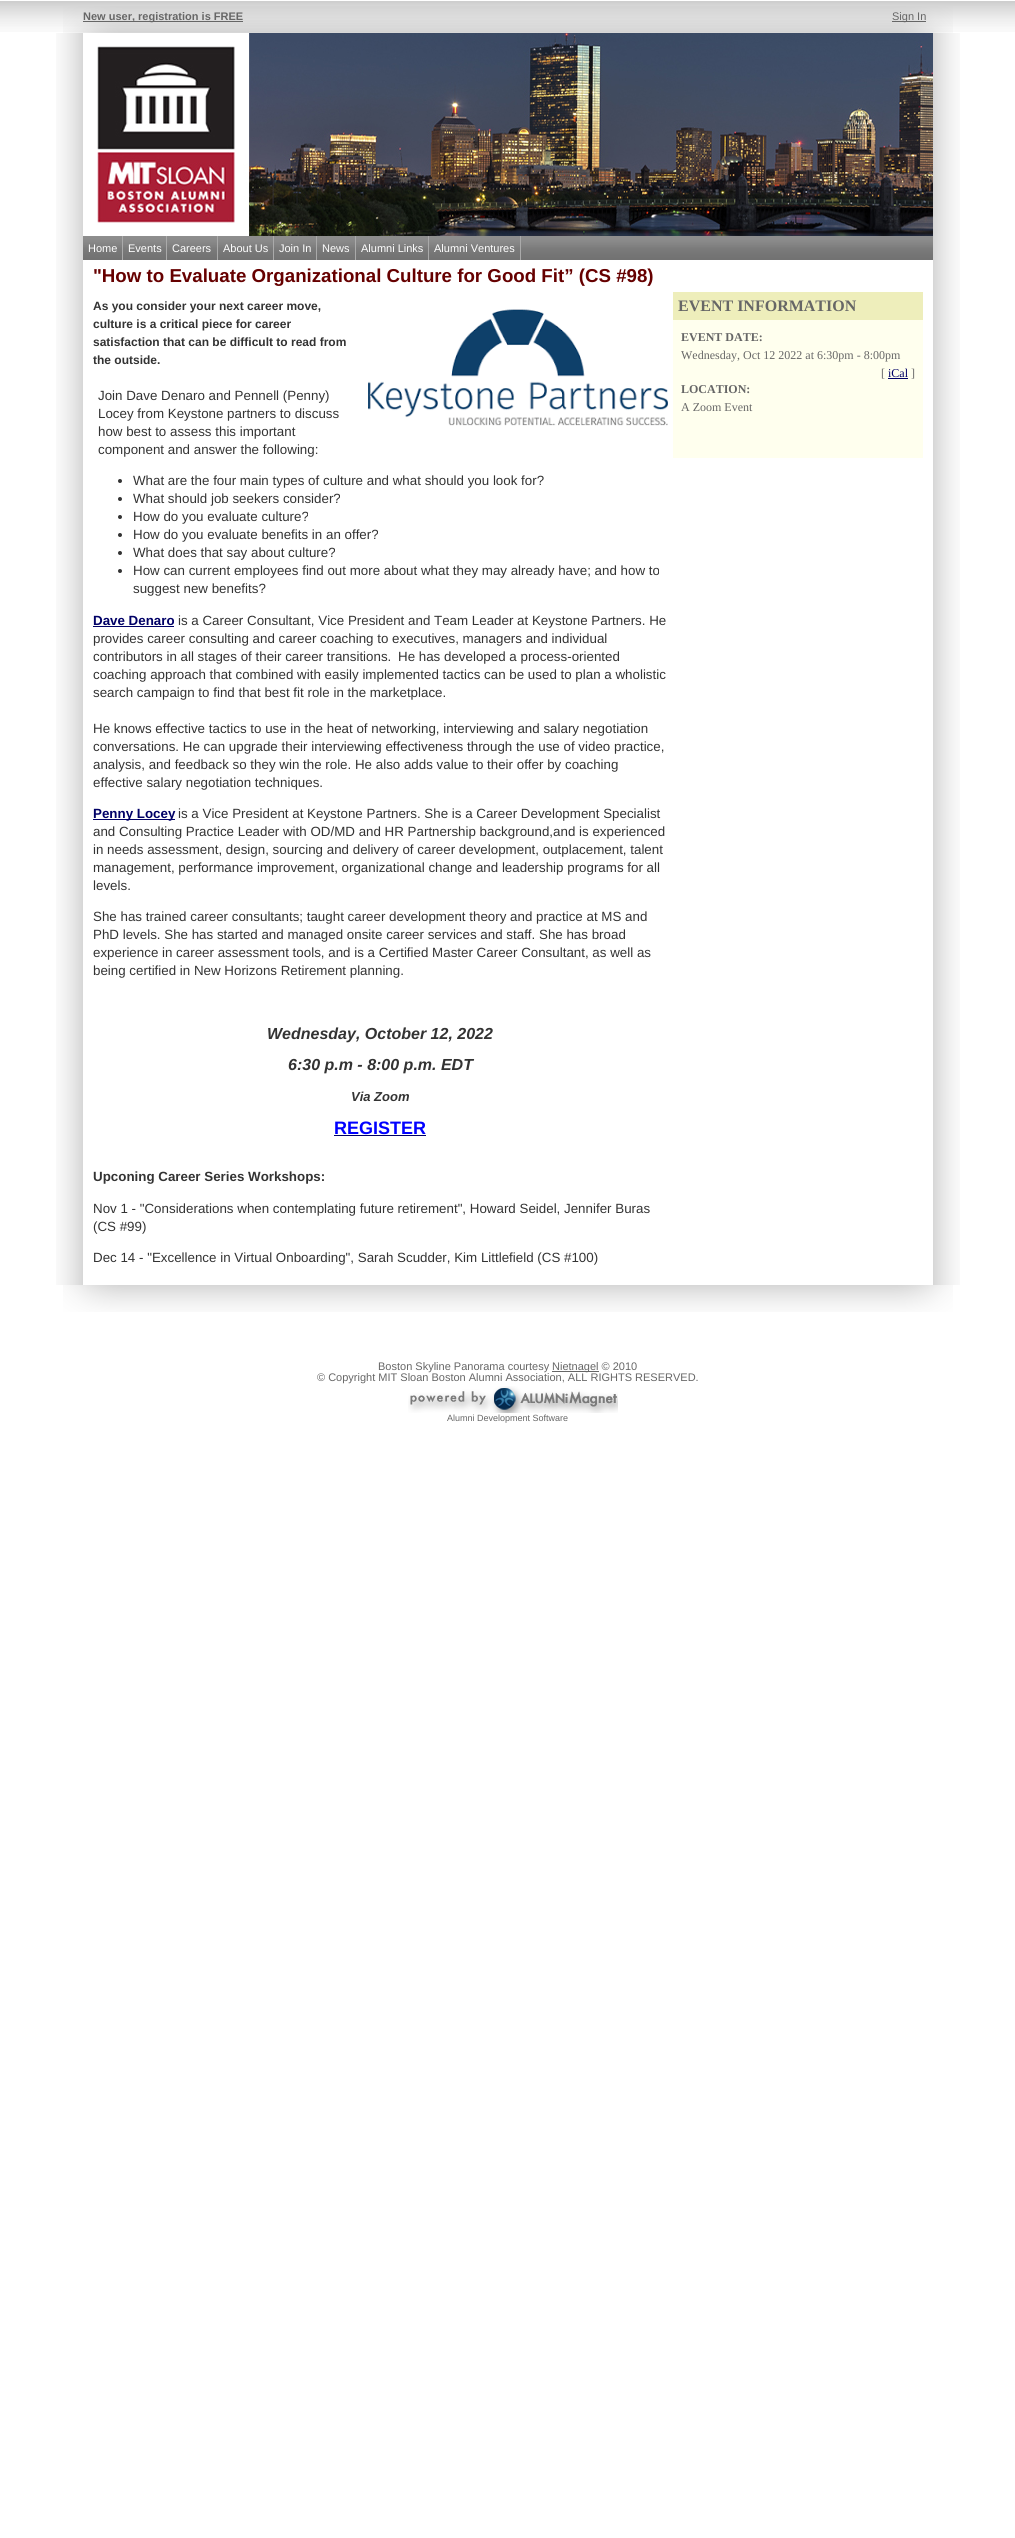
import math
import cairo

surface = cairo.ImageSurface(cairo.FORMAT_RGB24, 1015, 2538)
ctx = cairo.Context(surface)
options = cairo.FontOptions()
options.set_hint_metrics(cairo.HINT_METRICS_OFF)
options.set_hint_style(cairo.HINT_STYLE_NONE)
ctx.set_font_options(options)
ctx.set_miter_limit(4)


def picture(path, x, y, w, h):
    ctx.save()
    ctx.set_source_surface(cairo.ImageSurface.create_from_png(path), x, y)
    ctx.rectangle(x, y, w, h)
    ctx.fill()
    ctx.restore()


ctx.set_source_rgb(1, 1, 1)
ctx.paint()
picture("img1.png", 0, 1, 1015, 31)
picture("img2.png", 63, 6, 890, 27)
ctx.set_source_rgb(0.4, 0.4, 0.4)
ctx.rectangle(83, 21, 160, 1)
ctx.fill()
ctx.select_font_face("Liberation Sans", cairo.FONT_SLANT_NORMAL, cairo.FONT_WEIGHT_BOLD)
ctx.set_font_size(11)
ctx.move_to(83, 20)
ctx.show_text("New user, registration is FREE")
ctx.rectangle(892, 21, 34, 1)
ctx.fill()
ctx.select_font_face("Liberation Sans")
ctx.move_to(892, 20)
ctx.show_text("Sign In")
picture("img3.png", 56, 33, 27, 203)
picture("img4.png", 97, 33, 836, 203)
picture("img5.png", 933, 33, 27, 203)
picture("img6.png", 56, 236, 27, 24)
picture("img7.png", 83, 236, 850, 24)
ctx.set_source_rgb(0.667, 0.667, 0.667)
ctx.rectangle(122, 236, 1, 24)
ctx.fill()
ctx.set_source_rgb(1, 1, 1)
ctx.move_to(88, 252)
ctx.show_text("Home")
ctx.set_source_rgb(0.667, 0.667, 0.667)
ctx.rectangle(166, 236, 1, 24)
ctx.fill()
ctx.set_source_rgb(1, 1, 1)
ctx.move_to(128, 252)
ctx.show_text("Events")
ctx.set_source_rgb(0.667, 0.667, 0.667)
ctx.rectangle(217, 236, 1, 24)
ctx.fill()
ctx.set_source_rgb(1, 1, 1)
ctx.move_to(172, 252)
ctx.show_text("Careers")
ctx.set_source_rgb(0.667, 0.667, 0.667)
ctx.rectangle(273, 236, 1, 24)
ctx.fill()
ctx.set_source_rgb(1, 1, 1)
ctx.move_to(223, 252)
ctx.show_text("About Us")
ctx.set_source_rgb(0.667, 0.667, 0.667)
ctx.rectangle(316, 236, 1, 24)
ctx.fill()
ctx.set_source_rgb(1, 1, 1)
ctx.move_to(279, 252)
ctx.show_text("Join In")
ctx.set_source_rgb(0.667, 0.667, 0.667)
ctx.rectangle(355, 236, 1, 24)
ctx.fill()
ctx.set_source_rgb(1, 1, 1)
ctx.move_to(322, 252)
ctx.show_text("News")
ctx.set_source_rgb(0.667, 0.667, 0.667)
ctx.rectangle(428, 236, 1, 24)
ctx.fill()
ctx.set_source_rgb(1, 1, 1)
ctx.move_to(361, 252)
ctx.show_text("Alumni Links")
ctx.set_source_rgb(0.667, 0.667, 0.667)
ctx.rectangle(520, 236, 1, 24)
ctx.fill()
ctx.set_source_rgb(1, 1, 1)
ctx.move_to(434, 252)
ctx.show_text("Alumni Ventures")
picture("img8.png", 933, 236, 27, 24)
picture("img9.png", 56, 260, 27, 1025)
ctx.select_font_face("Liberation Sans", cairo.FONT_SLANT_NORMAL, cairo.FONT_WEIGHT_BOLD)
ctx.set_font_size(18.7)
ctx.set_source_rgb(0.4, 0, 0)
ctx.move_to(93, 282)
ctx.show_text("\"How to Evaluate Organizational Culture for Good Fit” (CS #98)")
ctx.set_font_size(12)
ctx.set_source_rgb(0.2, 0.2, 0.2)
ctx.move_to(93, 310)
ctx.show_text("As you consider your next career move,")
ctx.move_to(93, 328)
ctx.show_text("culture is a critical piece for career")
picture("img10.png", 368, 309, 300, 117)
ctx.move_to(93, 346)
ctx.show_text("satisfaction that can be difficult to read from")
ctx.move_to(93, 364)
ctx.show_text("the outside.")
ctx.select_font_face("Liberation Sans")
ctx.set_font_size(13.35)
ctx.move_to(98, 400)
ctx.show_text("Join Dave Denaro and Pennell (Penny)")
ctx.move_to(98, 418)
ctx.show_text("Locey from Keystone partners to discuss")
ctx.move_to(98, 436)
ctx.show_text("how best to assess this important")
ctx.move_to(98, 454)
ctx.show_text("component and answer the following:")
ctx.new_path()
ctx.arc(120, 481, 2, 0, 2 * math.pi)
ctx.fill()
ctx.move_to(133, 485)
ctx.show_text("What are the four main types of culture and what should you look for?")
ctx.new_path()
ctx.arc(120, 499, 2, 0, 2 * math.pi)
ctx.fill()
ctx.move_to(133, 503)
ctx.show_text("What should job seekers consider?")
ctx.new_path()
ctx.arc(120, 517, 2, 0, 2 * math.pi)
ctx.fill()
ctx.move_to(133, 521)
ctx.show_text("How do you evaluate culture?")
ctx.new_path()
ctx.arc(120, 535, 2, 0, 2 * math.pi)
ctx.fill()
ctx.move_to(133, 539)
ctx.show_text("How do you evaluate benefits in an offer?")
ctx.new_path()
ctx.arc(120, 553, 2, 0, 2 * math.pi)
ctx.fill()
ctx.move_to(133, 557)
ctx.show_text("What does that say about culture?")
ctx.new_path()
ctx.arc(120, 571, 2, 0, 2 * math.pi)
ctx.fill()
ctx.move_to(133, 575)
ctx.show_text("How can current employees find out more about what they may already have; and how to")
ctx.move_to(133, 593)
ctx.show_text("suggest new benefits?")
ctx.select_font_face("Liberation Sans", cairo.FONT_SLANT_NORMAL, cairo.FONT_WEIGHT_BOLD)
ctx.set_source_rgb(0, 0, 0.4)
ctx.move_to(93, 625)
ctx.show_text("Dave Denaro")
ctx.rectangle(93, 626, 81, 1)
ctx.fill()
ctx.select_font_face("Liberation Sans")
ctx.set_source_rgb(0.2, 0.2, 0.2)
ctx.move_to(178, 625)
ctx.show_text("is a Career Consultant, Vice President and Team Leader at Keystone Partners. He")
ctx.move_to(93, 643)
ctx.show_text("provides career consulting and career coaching to executives, managers and individual")
ctx.move_to(93, 661)
ctx.show_text("contributors in all stages of their career transitions.")
ctx.move_to(398, 661)
ctx.show_text("He has developed a process-oriented")
ctx.move_to(93, 679)
ctx.show_text("coaching approach that combined with easily implemented tactics can be used to plan a wholistic")
ctx.move_to(93, 697)
ctx.show_text("search campaign to find that best fit role in the marketplace.")
ctx.move_to(93, 733)
ctx.show_text("He knows effective tactics to use in the heat of networking, interviewing and salary negotiation")
ctx.move_to(93, 751)
ctx.show_text("conversations. He can upgrade their interviewing effectiveness through the use of video practice,")
ctx.move_to(93, 769)
ctx.show_text("analysis, and feedback so they win the role. He also adds value to their offer by coaching")
ctx.move_to(93, 787)
ctx.show_text("effective salary negotiation techniques.")
ctx.set_source_rgb(0, 0, 0.4)
ctx.rectangle(93, 819, 82, 1)
ctx.fill()
ctx.select_font_face("Liberation Sans", cairo.FONT_SLANT_NORMAL, cairo.FONT_WEIGHT_BOLD)
ctx.move_to(93, 818)
ctx.show_text("Penny Locey")
ctx.select_font_face("Liberation Sans")
ctx.set_source_rgb(0.2, 0.2, 0.2)
ctx.move_to(178, 818)
ctx.show_text("is a Vice President at Keystone Partners. She is a Career Development Specialist")
ctx.move_to(93, 836)
ctx.show_text("and Consulting Practice Leader with OD/MD and HR Partnership background,and is experienced")
ctx.move_to(93, 854)
ctx.show_text("in needs assessment, design, sourcing and delivery of career development, outplacement, talent")
ctx.move_to(93, 872)
ctx.show_text("management, performance improvement, organizational change and leadership programs for all")
ctx.move_to(93, 890)
ctx.show_text("levels.")
ctx.move_to(93, 921)
ctx.show_text("She has trained career consultants; taught career development theory and practice at MS and")
ctx.move_to(93, 939)
ctx.show_text("PhD levels. She has started and managed onsite career services and staff. She has broad")
ctx.move_to(93, 957)
ctx.show_text("experience in career assessment tools, and is a Certified Master Career Consultant, as well as")
ctx.move_to(93, 975)
ctx.show_text("being certified in New Horizons Retirement planning.")
ctx.select_font_face("Liberation Sans", cairo.FONT_SLANT_ITALIC, cairo.FONT_WEIGHT_BOLD)
ctx.set_font_size(16)
ctx.move_to(267, 1039)
ctx.show_text("Wednesday, October 12, 2022")
ctx.move_to(288, 1070)
ctx.show_text("6:30 p.m - 8:00 p.m. EDT")
ctx.set_font_size(13)
ctx.move_to(351, 1101)
ctx.show_text("Via Zoom")
ctx.select_font_face("Liberation Sans", cairo.FONT_SLANT_NORMAL, cairo.FONT_WEIGHT_BOLD)
ctx.set_font_size(18)
ctx.set_source_rgb(0, 0, 1)
ctx.move_to(334, 1134)
ctx.show_text("REGISTER")
ctx.set_source_rgb(0, 0, 0.4)
ctx.rectangle(334, 1135, 92, 1)
ctx.fill()
ctx.set_font_size(13.35)
ctx.set_source_rgb(0.2, 0.2, 0.2)
ctx.move_to(93, 1181)
ctx.show_text("Upconing Career Series Workshops:")
ctx.select_font_face("Liberation Sans")
ctx.move_to(93, 1213)
ctx.show_text("Nov 1 - \"Considerations when contemplating future retirement\", Howard Seidel, Jennifer Buras")
ctx.move_to(93, 1231)
ctx.show_text("(CS #99)")
ctx.move_to(93, 1262)
ctx.show_text("Dec 14 - \"Excellence in Virtual Onboarding\", Sarah Scudder, Kim Littlefield (CS #100)")
ctx.set_source_rgb(0.933, 0.933, 0.733)
ctx.rectangle(673, 292, 250, 28)
ctx.fill()
ctx.select_font_face("Liberation Serif", cairo.FONT_SLANT_NORMAL, cairo.FONT_WEIGHT_BOLD)
ctx.set_font_size(16)
ctx.set_source_rgb(0.4, 0.4, 0.4)
ctx.move_to(678, 311)
ctx.show_text("EVENT INFORMATION")
ctx.set_source_rgb(1, 1, 0.933)
ctx.rectangle(673, 320, 250, 138)
ctx.fill()
ctx.set_font_size(12)
ctx.set_source_rgb(0.4, 0.4, 0.4)
ctx.move_to(681, 341)
ctx.show_text("EVENT DATE:")
ctx.select_font_face("Liberation Serif")
ctx.move_to(681, 359)
ctx.show_text("Wednesday, Oct 12 2022 at 6:30pm - 8:00pm")
ctx.move_to(881, 377)
ctx.show_text("[")
ctx.set_source_rgb(0, 0, 0.4)
ctx.move_to(888, 377)
ctx.show_text("iCal")
ctx.rectangle(888, 378, 20, 1)
ctx.fill()
ctx.set_source_rgb(0.4, 0.4, 0.4)
ctx.move_to(911, 377)
ctx.show_text("]")
ctx.select_font_face("Liberation Serif", cairo.FONT_SLANT_NORMAL, cairo.FONT_WEIGHT_BOLD)
ctx.move_to(681, 393)
ctx.show_text("LOCATION:")
ctx.select_font_face("Liberation Serif")
ctx.move_to(681, 411)
ctx.show_text("A Zoom Event")
picture("img11.png", 933, 260, 27, 1025)
picture("img12.png", 63, 1285, 890, 27)
ctx.select_font_face("Liberation Sans")
ctx.set_font_size(11)
ctx.move_to(378, 1370)
ctx.show_text("Boston Skyline Panorama courtesy")
ctx.rectangle(552, 1371, 47, 1)
ctx.fill()
ctx.move_to(552, 1370)
ctx.show_text("Nietnagel © 2010")
ctx.move_to(317, 1381)
ctx.show_text("© Copyright MIT Sloan Boston Alumni Association, ALL RIGHTS RESERVED.")
picture("img13.png", 408, 1386, 210, 27)
ctx.set_font_size(9)
ctx.move_to(447, 1421)
ctx.show_text("Alumni Development Software")
surface.write_to_png("page.png")
